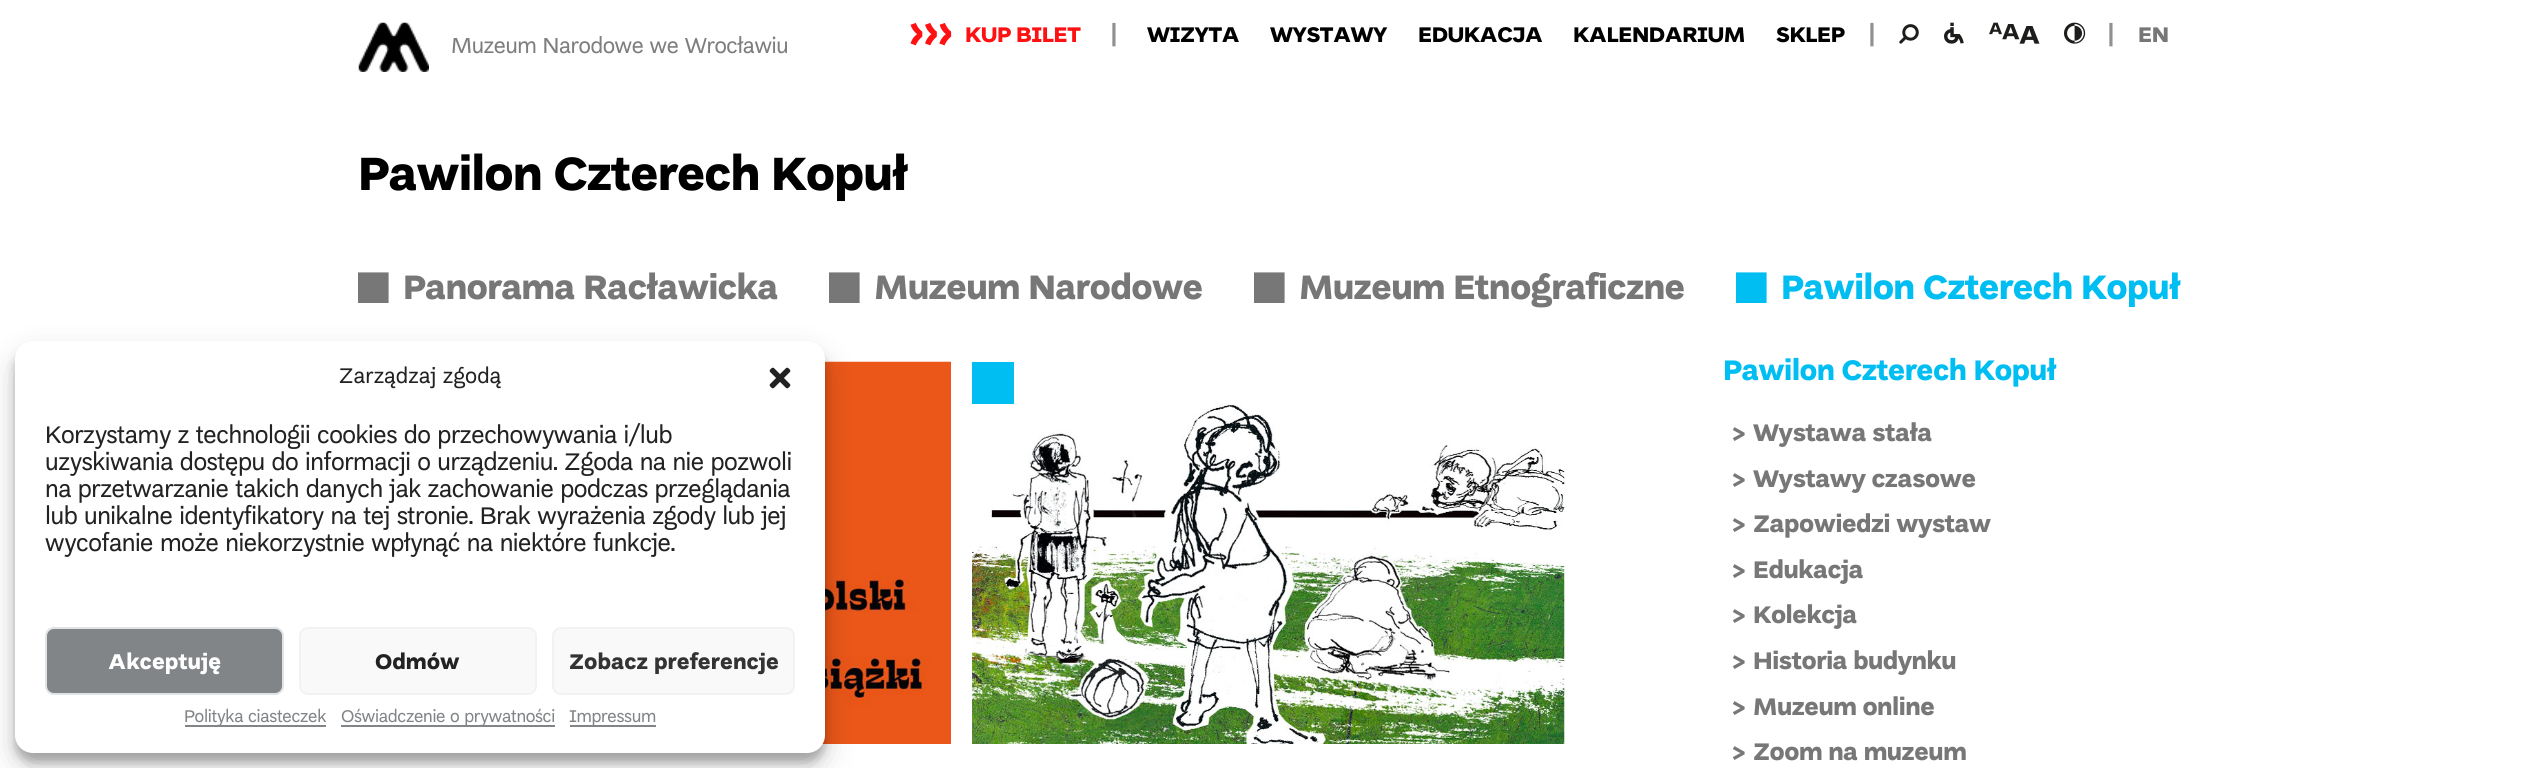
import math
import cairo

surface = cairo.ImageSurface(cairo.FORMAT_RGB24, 2537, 768)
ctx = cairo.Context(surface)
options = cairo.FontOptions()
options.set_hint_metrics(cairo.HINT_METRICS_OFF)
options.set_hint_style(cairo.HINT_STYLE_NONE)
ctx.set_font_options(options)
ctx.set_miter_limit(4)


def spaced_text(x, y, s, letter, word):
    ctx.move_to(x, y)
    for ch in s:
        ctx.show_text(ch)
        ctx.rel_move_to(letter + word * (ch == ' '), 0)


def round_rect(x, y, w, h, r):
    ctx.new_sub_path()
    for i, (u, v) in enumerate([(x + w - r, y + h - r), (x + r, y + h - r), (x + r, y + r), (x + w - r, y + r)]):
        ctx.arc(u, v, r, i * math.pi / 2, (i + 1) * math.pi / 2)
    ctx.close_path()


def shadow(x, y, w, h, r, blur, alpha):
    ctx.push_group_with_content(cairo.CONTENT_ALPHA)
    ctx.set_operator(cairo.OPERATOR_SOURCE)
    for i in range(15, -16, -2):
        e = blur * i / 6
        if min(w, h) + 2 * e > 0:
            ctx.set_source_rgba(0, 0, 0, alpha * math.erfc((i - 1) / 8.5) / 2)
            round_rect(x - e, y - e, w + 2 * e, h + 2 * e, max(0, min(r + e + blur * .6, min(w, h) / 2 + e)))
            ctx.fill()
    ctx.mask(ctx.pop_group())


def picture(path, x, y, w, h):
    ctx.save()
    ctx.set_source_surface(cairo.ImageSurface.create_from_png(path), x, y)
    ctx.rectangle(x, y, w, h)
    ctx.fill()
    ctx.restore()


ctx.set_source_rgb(1, 1, 1)
ctx.paint()
picture("img1.png", 358, 22, 71, 50)
ctx.select_font_face("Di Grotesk")
ctx.set_font_size(23)
ctx.set_source_rgb(0.494, 0.494, 0.494)
spaced_text(451, 53, "Muzeum Narodowe we Wrocławiu", -0.45, 0)
picture("img2.png", 910, 22, 42, 24)
ctx.select_font_face("Di Grotesk", cairo.FONT_SLANT_NORMAL, cairo.FONT_WEIGHT_BOLD)
ctx.set_font_size(22.5)
ctx.set_source_rgb(0.996, 0.067, 0.071)
spaced_text(965, 42, "KUP BILET", -0.5, 0)
ctx.set_source_rgb(0.565, 0.565, 0.565)
spaced_text(1111, 42, "|", -0.5, 0)
ctx.set_source_rgb(0, 0, 0)
spaced_text(1147, 42, "WIZYTA", -0.5, 0)
spaced_text(1270, 42, "WYSTAWY", -0.5, 0)
spaced_text(1418, 42, "EDUKACJA", -0.5, 0)
spaced_text(1573, 42, "KALENDARIUM", -0.5, 0)
spaced_text(1776, 42, "SKLEP", -0.5, 0)
ctx.set_source_rgb(0.565, 0.565, 0.565)
ctx.move_to(1869, 42)
ctx.show_text("|")
picture("img3.png", 1899, 24, 20, 20)
picture("img4.png", 1944, 22, 20, 22)
picture("img5.png", 1989, 22, 51, 22)
picture("img6.png", 2064, 22, 22, 22)
ctx.move_to(2108, 42)
ctx.show_text("|")
ctx.set_source_rgb(0.467, 0.467, 0.467)
spaced_text(2138, 42, "EN", -0.5, 0)
ctx.set_font_size(49.5)
ctx.set_source_rgb(0, 0, 0)
spaced_text(358, 190, "Pawilon Czterech Kopuł", -1, 0)
ctx.set_font_size(60)
ctx.set_source_rgb(0.467, 0.467, 0.467)
spaced_text(358, 303, "◼", -0.75, 0)
ctx.set_font_size(36)
spaced_text(403, 299, "Panorama Racławicka", -0.75, 0)
ctx.set_font_size(60)
spaced_text(829, 303, "◼", -0.75, 0)
ctx.set_font_size(36)
spaced_text(874, 299, "Muzeum Narodowe", -0.75, 0)
ctx.set_font_size(60)
spaced_text(1254, 303, "◼", -0.75, 0)
ctx.set_font_size(36)
spaced_text(1299, 299, "Muzeum Etnograficzne", -0.75, 0)
ctx.set_font_size(60)
ctx.set_source_rgb(0, 0.745, 0.949)
spaced_text(1736, 303, "◼", -0.75, 0)
ctx.set_font_size(36)
spaced_text(1781, 299, "Pawilon Czterech Kopuł", -0.75, 0)
picture("img7.png", 822, 361, 129, 383)
picture("img8.png", 972, 403, 593, 341)
ctx.rectangle(972, 362, 42, 42)
ctx.fill()
ctx.set_font_size(30)
spaced_text(1723, 380, "Pawilon Czterech Kopuł", -0.6, 0)
ctx.set_font_size(25.5)
ctx.set_source_rgb(0.467, 0.467, 0.467)
spaced_text(1732, 441, ">", -0.5, 0)
spaced_text(1753, 441, "Wystawa stała", -0.5, 0)
spaced_text(1732, 487, ">", -0.5, 0)
spaced_text(1753, 487, "Wystawy czasowe", -0.5, 0)
spaced_text(1732, 532, ">", -0.5, 0)
spaced_text(1753, 532, "Zapowiedzi wystaw", -0.5, 0)
spaced_text(1732, 578, ">", -0.5, 0)
spaced_text(1753, 578, "Edukacja", -0.5, 0)
spaced_text(1732, 623, ">", -0.5, 0)
spaced_text(1753, 623, "Kolekcja", -0.5, 0)
spaced_text(1732, 669, ">", -0.5, 0)
spaced_text(1753, 669, "Historia budynku", -0.5, 0)
spaced_text(1732, 715, ">", -0.5, 0)
spaced_text(1753, 715, "Muzeum online", -0.5, 0)
spaced_text(1732, 760, ">", -0.5, 0)
spaced_text(1753, 760, "Zoom na muzeum", -0.5, 0)
ctx.set_source_rgb(0, 0, 0)
shadow(15, 350, 810, 412, 18, 4.5, 0.23)
shadow(15, 356, 810, 412, 18, 15, 0.19)
ctx.set_source_rgb(1, 1, 1)
round_rect(15, 341, 810, 412, 18)
ctx.fill()
ctx.select_font_face("Di Grotesk")
ctx.set_font_size(22.5)
ctx.set_source_rgb(0.133, 0.133, 0.133)
ctx.move_to(339, 383)
ctx.show_text("Zarządzaj zgodą")
picture("img9.png", 769, 367, 22, 22)
ctx.set_font_size(25.5)
spaced_text(45, 443, "Korzystamy z technologii cookies do przechowywania i/lub", -0.5, 0)
spaced_text(45, 470, "uzyskiwania dostępu do informacji o urządzeniu. Zgoda na nie pozwoli", -0.5, 0)
spaced_text(45, 497, "na przetwarzanie takich danych jak zachowanie podczas przeglądania", -0.5, 0)
spaced_text(45, 524, "lub unikalne identyfikatory na tej stronie. Brak wyrażenia zgody lub jej", -0.5, 0)
spaced_text(45, 551, "wycofanie może niekorzystnie wpłynąć na niektóre funkcje.", -0.5, 0)
ctx.set_source_rgb(0.506, 0.522, 0.533)
round_rect(46, 628, 237, 66, 8)
ctx.fill_preserve()
ctx.set_source_rgb(0.882, 0.894, 0.902)
ctx.stroke()
ctx.select_font_face("Di Grotesk", cairo.FONT_SLANT_NORMAL, cairo.FONT_WEIGHT_BOLD)
ctx.set_font_size(22.5)
ctx.set_source_rgb(1, 1, 1)
ctx.move_to(108, 669)
ctx.show_text("Akceptuję")
ctx.set_source_rgb(0.976, 0.976, 0.976)
round_rect(300, 628, 236, 66, 8)
ctx.fill_preserve()
ctx.set_source_rgb(0.949, 0.949, 0.949)
ctx.stroke()
ctx.set_source_rgb(0.133, 0.133, 0.133)
ctx.move_to(375, 669)
ctx.show_text("Odmów")
ctx.set_source_rgb(0.976, 0.976, 0.976)
round_rect(553, 628, 241, 66, 8)
ctx.fill_preserve()
ctx.set_source_rgb(0.949, 0.949, 0.949)
ctx.stroke()
ctx.set_source_rgb(0.2, 0.2, 0.2)
ctx.move_to(569, 669)
ctx.show_text("Zobacz preferencje")
ctx.set_source_rgb(0.506, 0.522, 0.533)
ctx.rectangle(185, 725, 141, 2)
ctx.fill()
ctx.select_font_face("Di Grotesk")
ctx.set_font_size(18)
spaced_text(184, 722, "Polityka ciasteczek", -0.35, 0)
ctx.rectangle(341, 725, 214, 2)
ctx.fill()
spaced_text(341, 722, "Oświadczenie o prywatności", -0.35, 0)
ctx.rectangle(570, 725, 86, 2)
ctx.fill()
spaced_text(569, 722, "Impressum", -0.35, 0)
surface.write_to_png("page.png")
